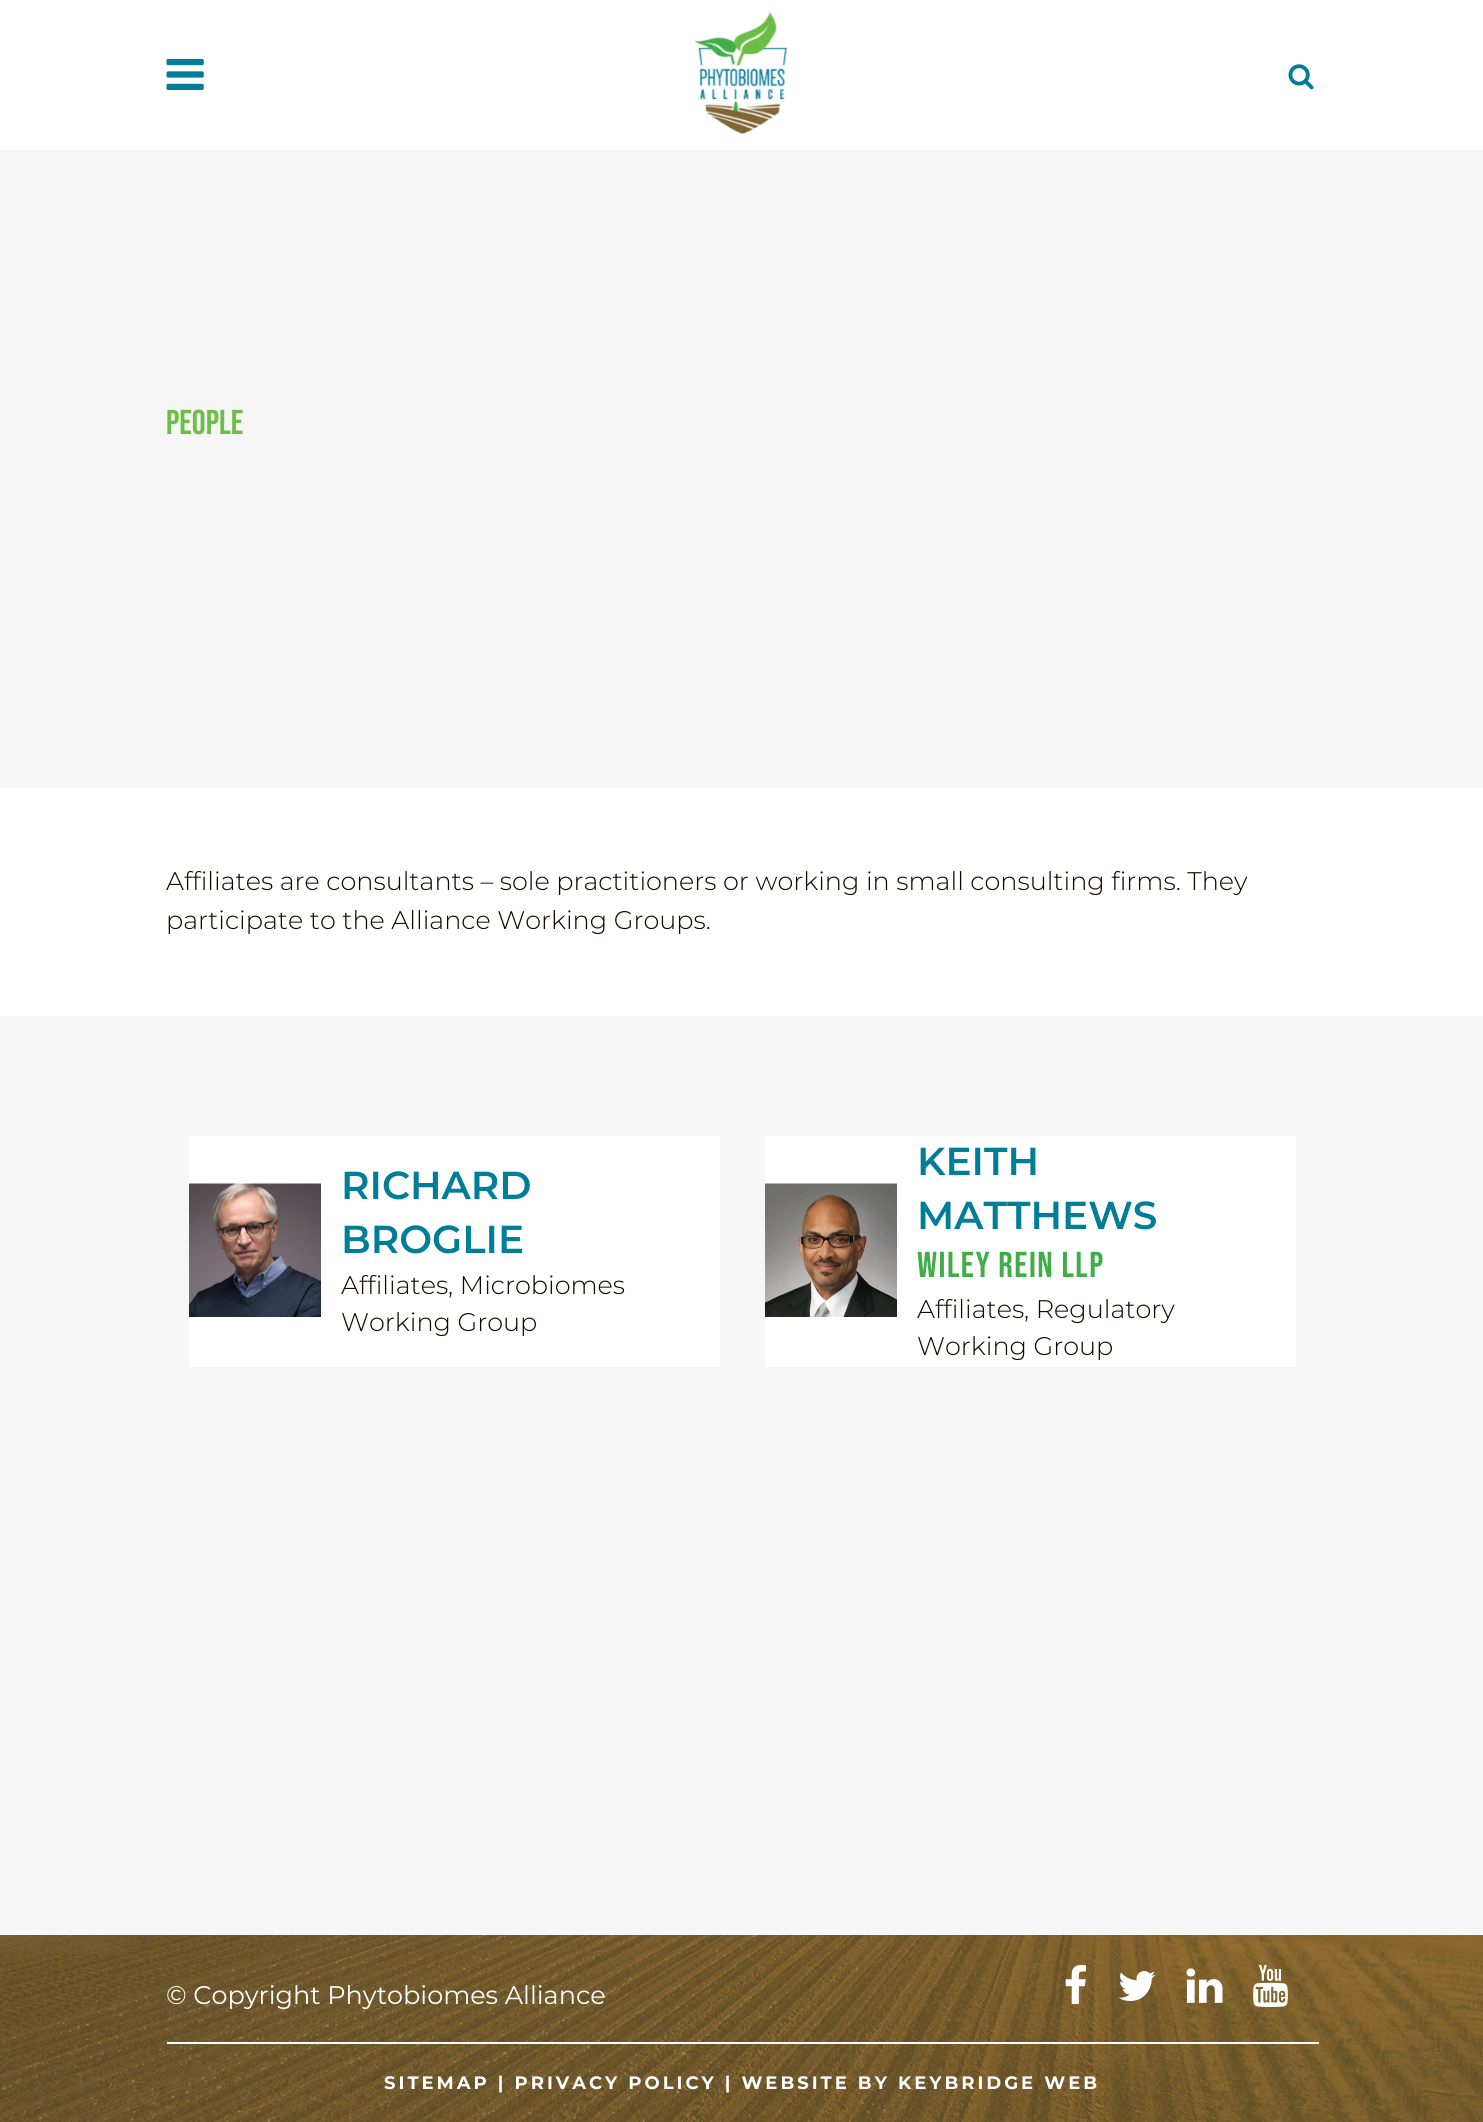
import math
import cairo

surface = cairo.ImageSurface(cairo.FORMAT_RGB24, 1483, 2122)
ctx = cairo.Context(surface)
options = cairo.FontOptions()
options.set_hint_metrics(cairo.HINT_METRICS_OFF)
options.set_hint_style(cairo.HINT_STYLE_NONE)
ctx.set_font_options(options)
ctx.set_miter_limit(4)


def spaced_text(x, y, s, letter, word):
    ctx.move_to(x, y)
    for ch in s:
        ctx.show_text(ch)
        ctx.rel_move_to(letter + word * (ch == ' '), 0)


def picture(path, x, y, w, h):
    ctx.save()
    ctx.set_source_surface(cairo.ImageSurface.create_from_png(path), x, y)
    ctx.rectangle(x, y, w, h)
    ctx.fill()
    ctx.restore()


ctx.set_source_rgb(0.961, 0.961, 0.961)
ctx.paint()
ctx.set_source_rgb(1, 1, 1)
ctx.rectangle(0, 0, 1483, 150)
ctx.fill()
picture("img1.png", 166, 58, 38, 32)
picture("img2.png", 694, 11, 94, 123)
picture("img3.png", 1288, 64, 26, 26)
ctx.select_font_face("Bebas Neue")
ctx.set_font_size(34.5)
ctx.set_source_rgb(0.424, 0.745, 0.271)
ctx.move_to(166, 434)
ctx.show_text("People")
ctx.set_source_rgb(1, 1, 1)
ctx.rectangle(0, 788, 1483, 228)
ctx.fill()
ctx.select_font_face("Montserrat Light")
ctx.set_font_size(25.5)
ctx.set_source_rgb(0.063, 0.024, 0)
ctx.move_to(166, 890)
ctx.show_text("Affiliates are consultants – sole practitioners or working in small consulting firms. They")
ctx.move_to(166, 929)
ctx.show_text("participate to the Alliance Working Groups.")
ctx.set_source_rgb(1, 1, 1)
ctx.rectangle(189, 1136, 531, 231)
ctx.fill()
picture("img4.png", 189, 1183, 132, 134)
ctx.select_font_face("Montserrat SemiBold")
ctx.set_font_size(39)
ctx.set_source_rgb(0, 0.49, 0.592)
ctx.move_to(341, 1199)
ctx.show_text("RICHARD")
ctx.move_to(341, 1253)
ctx.show_text("BROGLIE")
ctx.select_font_face("Montserrat Light")
ctx.set_font_size(25.5)
ctx.set_source_rgb(0.063, 0.024, 0)
ctx.move_to(341, 1294)
ctx.show_text("Affiliates, Microbiomes")
ctx.move_to(341, 1331)
ctx.show_text("Working Group")
ctx.set_source_rgb(1, 1, 1)
ctx.rectangle(765, 1136, 531, 231)
ctx.fill()
picture("img5.png", 765, 1183, 132, 134)
ctx.select_font_face("Montserrat SemiBold")
ctx.set_font_size(39)
ctx.set_source_rgb(0, 0.49, 0.592)
ctx.move_to(917, 1175)
ctx.show_text("KEITH")
ctx.move_to(917, 1229)
ctx.show_text("MATTHEWS")
ctx.select_font_face("Bebas Neue")
ctx.set_font_size(36)
ctx.set_source_rgb(0.255, 0.678, 0.286)
spaced_text(917, 1277, "WILEY REIN LLP", 1.5, 0)
ctx.select_font_face("Montserrat Light")
ctx.set_font_size(25.5)
ctx.set_source_rgb(0.063, 0.024, 0)
ctx.move_to(917, 1318)
ctx.show_text("Affiliates, Regulatory")
ctx.move_to(917, 1355)
ctx.show_text("Working Group")
picture("img6.png", 0, 1935, 1483, 187)
ctx.select_font_face("Montserrat")
ctx.set_source_rgb(1, 1, 1)
ctx.move_to(166, 2004)
ctx.show_text("© Copyright Phytobiomes Alliance")
picture("img7.png", 1065, 1965, 21, 39)
picture("img8.png", 1118, 1971, 38, 30)
picture("img9.png", 1186, 1968, 37, 35)
picture("img10.png", 1253, 1965, 35, 42)
ctx.rectangle(167, 2042, 1152, 2)
ctx.fill()
ctx.select_font_face("Montserrat", cairo.FONT_SLANT_NORMAL, cairo.FONT_WEIGHT_BOLD)
ctx.set_font_size(18)
spaced_text(384, 2089, "SITEMAP | PRIVACY POLICY | WEBSITE BY KEYBRIDGE WEB", 3, 0)
surface.write_to_png("page.png")
